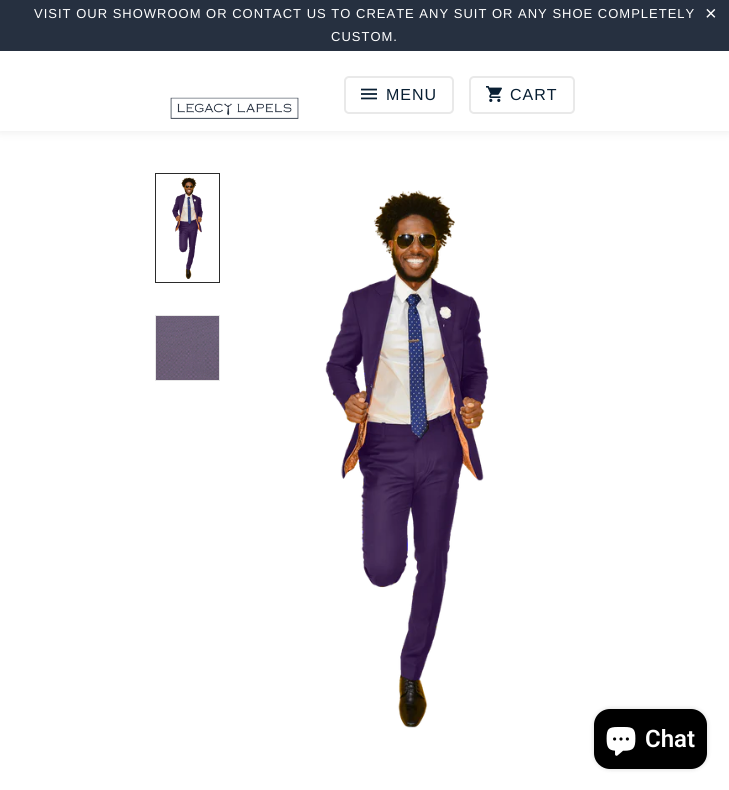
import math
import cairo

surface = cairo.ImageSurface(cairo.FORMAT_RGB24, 729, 790)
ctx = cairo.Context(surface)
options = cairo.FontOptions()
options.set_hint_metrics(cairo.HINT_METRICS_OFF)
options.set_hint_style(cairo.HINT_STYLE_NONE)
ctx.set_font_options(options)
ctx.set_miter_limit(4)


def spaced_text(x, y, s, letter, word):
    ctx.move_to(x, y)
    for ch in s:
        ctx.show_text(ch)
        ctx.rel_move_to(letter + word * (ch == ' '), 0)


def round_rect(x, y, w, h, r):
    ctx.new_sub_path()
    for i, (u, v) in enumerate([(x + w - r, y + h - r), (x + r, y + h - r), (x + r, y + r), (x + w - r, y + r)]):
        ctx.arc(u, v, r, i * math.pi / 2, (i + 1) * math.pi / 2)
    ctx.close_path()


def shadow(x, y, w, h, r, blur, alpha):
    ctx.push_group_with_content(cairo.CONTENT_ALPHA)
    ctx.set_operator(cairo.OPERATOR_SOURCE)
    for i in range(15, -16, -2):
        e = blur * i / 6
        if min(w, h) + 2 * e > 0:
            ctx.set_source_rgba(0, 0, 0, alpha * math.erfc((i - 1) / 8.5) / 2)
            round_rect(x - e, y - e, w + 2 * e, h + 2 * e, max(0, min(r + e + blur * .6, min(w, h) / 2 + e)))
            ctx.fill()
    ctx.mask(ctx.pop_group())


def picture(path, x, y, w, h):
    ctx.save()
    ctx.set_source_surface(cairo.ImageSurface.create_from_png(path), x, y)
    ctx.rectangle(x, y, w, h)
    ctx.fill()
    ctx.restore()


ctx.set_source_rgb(1, 1, 1)
ctx.paint()
ctx.save()
ctx.rectangle(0, 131, 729, 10)
ctx.clip()
ctx.set_source_rgb(0.914, 0.914, 0.914)
shadow(0, 51, 729, 80, 0, 5, 1)
ctx.restore()
ctx.set_source_rgb(0.149, 0.188, 0.251)
ctx.rectangle(0, 0, 729, 51)
ctx.fill()
ctx.select_font_face("Liberation Sans")
ctx.set_font_size(13)
ctx.set_source_rgb(1, 1, 1)
spaced_text(34, 18, "VISIT OUR SHOWROOM OR CONTACT US TO CREATE ANY SUIT OR ANY SHOE COMPLETELY", 1, 0)
spaced_text(331, 41, "CUSTOM.", 1, 0)
ctx.set_font_size(20)
spaced_text(705, 20, "×", 1, 0)
round_rect(345, 77, 108, 36, 4)
ctx.set_source_rgb(0.914, 0.914, 0.914)
ctx.stroke()
picture("img1.png", 361, 88, 16, 12)
ctx.set_font_size(16)
ctx.set_source_rgb(0.035, 0.122, 0.2)
spaced_text(386, 100, "MENU", 1, 0)
round_rect(470, 77, 104, 36, 4)
ctx.set_source_rgb(0.914, 0.914, 0.914)
ctx.stroke()
picture("img2.png", 486, 86, 16, 16)
ctx.set_source_rgb(0.035, 0.122, 0.2)
spaced_text(510, 100, "CART", 1, 0)
picture("img3.png", 170, 97, 129, 22)
ctx.rectangle(155.5, 173.5, 64, 109)
ctx.set_source_rgb(0.169, 0.169, 0.169)
ctx.set_line_width(1)
ctx.stroke()
picture("img4.png", 172, 177, 31, 102)
ctx.rectangle(155.5, 315.5, 64, 65)
ctx.set_source_rgb(0.906, 0.906, 0.906)
ctx.stroke()
picture("img5.png", 156, 316, 63, 64)
picture("img6.png", 325, 190, 164, 538)
ctx.set_source_rgb(0, 0, 0)
shadow(594, 709, 113, 60, 16, 2.5, 0.15)
ctx.set_source_rgb(0, 0, 0)
round_rect(594, 709, 113, 60, 16)
ctx.fill()
picture("img7.png", 606, 727, 30, 29)
ctx.select_font_face("Roboto SemiBold")
ctx.set_font_size(24)
ctx.set_source_rgb(1, 1, 1)
ctx.move_to(645, 747)
ctx.show_text("Chat")
surface.write_to_png("page.png")
